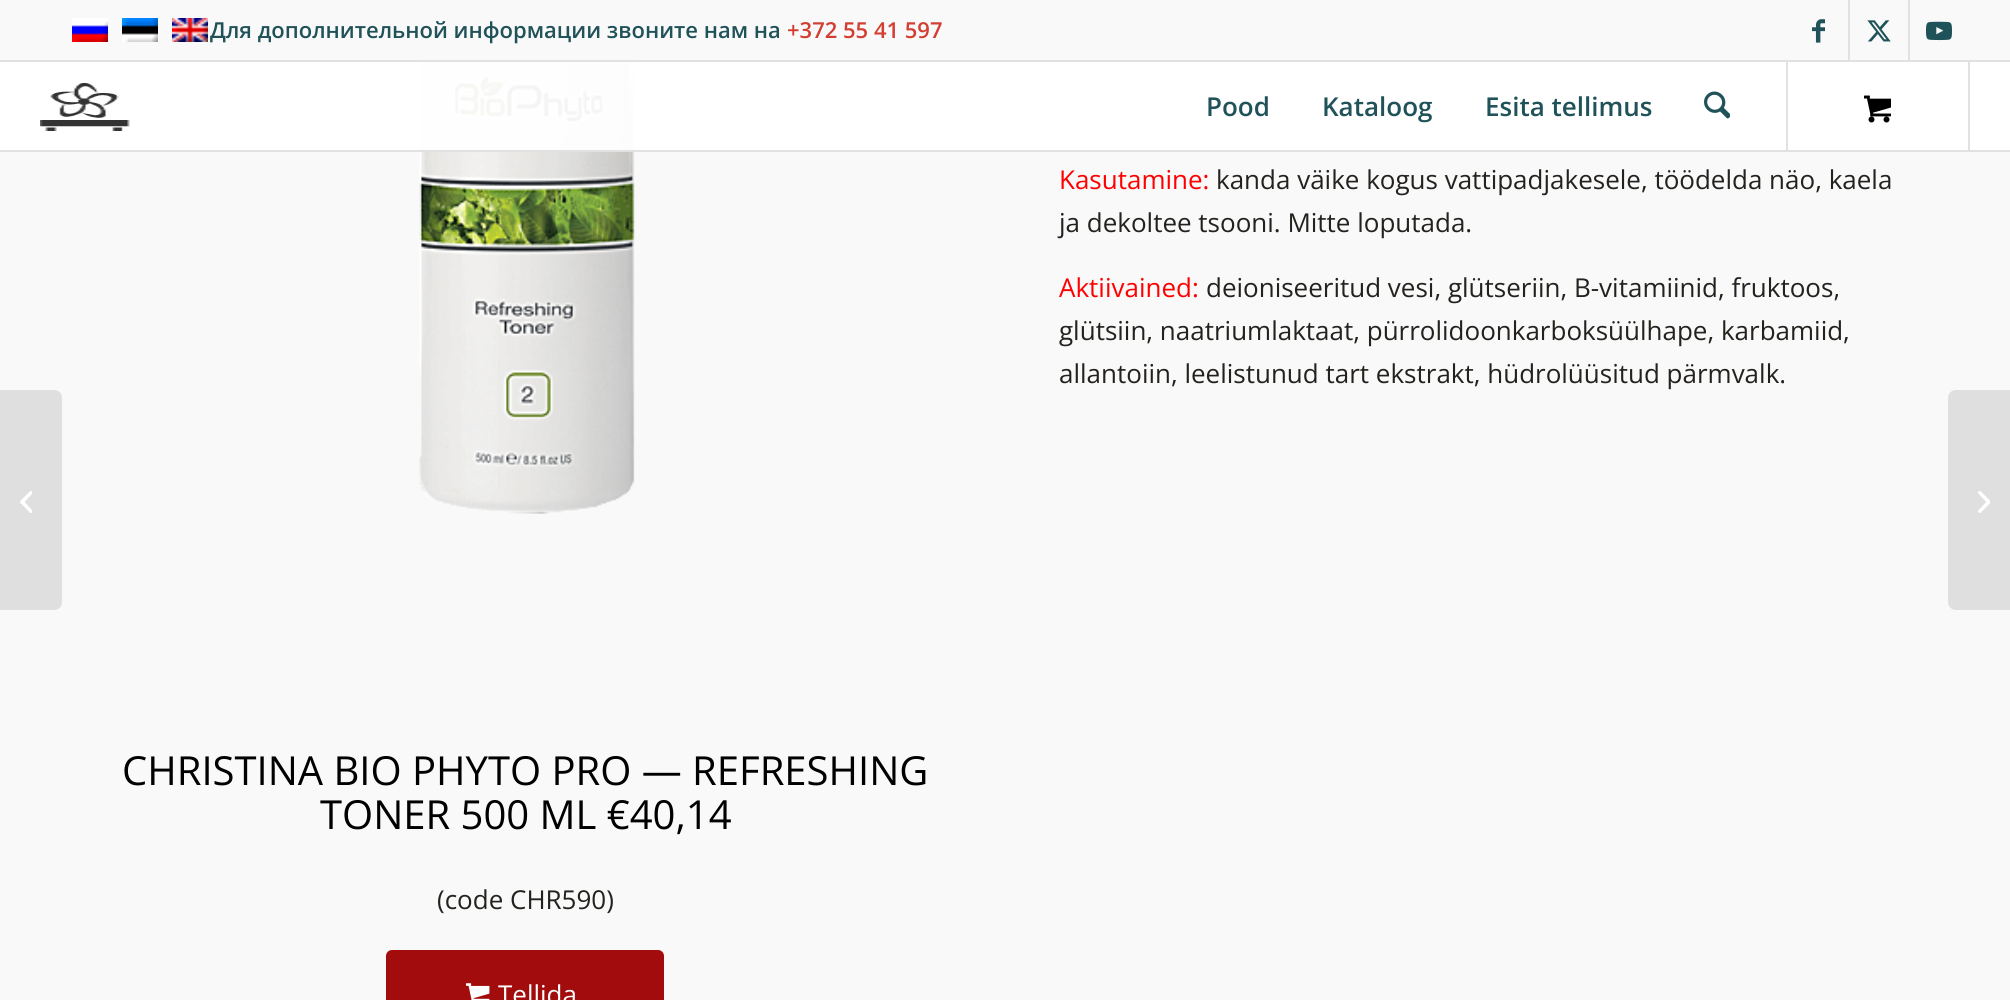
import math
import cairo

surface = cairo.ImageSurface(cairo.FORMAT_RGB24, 2010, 1000)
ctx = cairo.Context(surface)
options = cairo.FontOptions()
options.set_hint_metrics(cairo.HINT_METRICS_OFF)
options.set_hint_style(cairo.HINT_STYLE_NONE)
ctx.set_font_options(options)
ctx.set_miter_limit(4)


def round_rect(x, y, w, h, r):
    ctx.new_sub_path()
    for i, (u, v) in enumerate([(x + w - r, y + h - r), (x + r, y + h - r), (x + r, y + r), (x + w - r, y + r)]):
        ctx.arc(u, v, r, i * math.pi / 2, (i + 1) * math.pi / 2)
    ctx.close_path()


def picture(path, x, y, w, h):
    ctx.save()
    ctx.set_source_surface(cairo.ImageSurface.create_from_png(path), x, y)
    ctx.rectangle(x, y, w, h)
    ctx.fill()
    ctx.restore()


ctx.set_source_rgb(0.973, 0.973, 0.973)
ctx.paint()
ctx.set_source_rgb(0.882, 0.882, 0.882)
ctx.rectangle(0, 60, 2010, 2)
ctx.fill()
picture("img1.png", 72, 18, 36, 24)
picture("img2.png", 122, 18, 36, 24)
picture("img3.png", 172, 18, 36, 24)
ctx.select_font_face("Open Sans SemiBold")
ctx.set_font_size(22)
ctx.set_source_rgb(0.125, 0.322, 0.353)
ctx.move_to(210, 38)
ctx.show_text("Для дополнительной информации звоните нам на")
ctx.set_source_rgb(0.827, 0.243, 0.2)
ctx.move_to(787, 38)
ctx.show_text("+372 55 41 597")
ctx.set_source_rgb(0.882, 0.882, 0.882)
ctx.rectangle(1848, 0, 2, 60)
ctx.fill()
picture("img4.png", 1812, 19, 13, 24)
ctx.rectangle(1908, 0, 2, 60)
ctx.fill()
picture("img5.png", 1867, 20, 24, 22)
picture("img6.png", 1926, 21, 26, 20)
picture("img11.png", 419, 62, 216, 452)
ctx.set_source_rgba(1, 1, 1, 0.95)
ctx.rectangle(0, 62, 2010, 88)
ctx.fill()
ctx.set_source_rgb(0.882, 0.882, 0.882)
ctx.rectangle(0, 150, 2010, 2)
ctx.fill()
picture("img7.png", 40, 83, 90, 48)
ctx.set_font_size(26)
ctx.set_source_rgb(0.125, 0.322, 0.353)
ctx.move_to(1206, 116)
ctx.show_text("Pood")
ctx.move_to(1322, 116)
ctx.show_text("Kataloog")
ctx.move_to(1485, 116)
ctx.show_text("Esita tellimus")
picture("img8.png", 1704, 91, 26, 28)
ctx.set_source_rgb(0.882, 0.882, 0.882)
ctx.rectangle(1968, 62, 2, 88)
ctx.fill()
ctx.rectangle(1786, 62, 2, 88)
ctx.fill()
picture("img9.png", 1864, 95, 27, 28)
ctx.set_source_rgb(0.875, 0.875, 0.875)
ctx.new_path()
ctx.move_to(0, 390)
ctx.line_to(54, 390)
ctx.curve_to(58.5, 390, 62, 393.5, 62, 398)
ctx.line_to(62, 602)
ctx.curve_to(62, 606.5, 58.5, 610, 54, 610)
ctx.line_to(0, 610)
ctx.close_path()
ctx.fill()
picture("img10.png", 20, 491, 12, 22)
ctx.select_font_face("Open Sans")
ctx.set_source_rgb(1, 0, 0)
ctx.move_to(1059, 189)
ctx.show_text("Kasutamine:")
ctx.set_source_rgb(0.141, 0.133, 0.118)
ctx.move_to(1216, 189)
ctx.show_text("kanda väike kogus vattipadjakesele, töödelda näo, kaela")
ctx.move_to(1059, 232)
ctx.show_text("ja dekoltee tsooni. Mitte loputada.")
ctx.set_source_rgb(1, 0, 0)
ctx.move_to(1059, 297)
ctx.show_text("Aktiivained:")
ctx.set_source_rgb(0.141, 0.133, 0.118)
ctx.move_to(1206, 297)
ctx.show_text("deioniseeritud vesi, glütseriin, B-vitamiinid, fruktoos,")
ctx.move_to(1059, 340)
ctx.show_text("glütsiin, naatriumlaktaat, pürrolidoonkarboksüülhape, karbamiid,")
ctx.move_to(1059, 383)
ctx.show_text("allantoiin, leelistunud tart ekstrakt, hüdrolüüsitud pärmvalk.")
ctx.set_font_size(40)
ctx.set_source_rgb(0, 0, 0)
ctx.move_to(122, 785)
ctx.show_text("CHRISTINA BIO PHYTO PRO — REFRESHING")
ctx.move_to(320, 829)
ctx.show_text("TONER 500 ML €40,14")
ctx.set_font_size(26)
ctx.set_source_rgb(0.141, 0.133, 0.118)
ctx.move_to(437, 909)
ctx.show_text("(code CHR590)")
ctx.set_source_rgb(0.639, 0.047, 0.047)
round_rect(386, 950, 278, 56, 6)
ctx.fill()
picture("img12.png", 466, 983, 24, 17)
ctx.set_source_rgb(1, 1, 1)
ctx.move_to(498, 1004)
ctx.show_text("Tellida")
ctx.set_source_rgb(0.875, 0.875, 0.875)
ctx.new_path()
ctx.move_to(1956, 390)
ctx.line_to(2010, 390)
ctx.line_to(2010, 610)
ctx.line_to(1956, 610)
ctx.curve_to(1951.5, 610, 1948, 606.5, 1948, 602)
ctx.line_to(1948, 398)
ctx.curve_to(1948, 393.5, 1951.5, 390, 1956, 390)
ctx.close_path()
ctx.fill()
picture("img13.png", 1978, 491, 12, 22)
surface.write_to_png("page.png")
